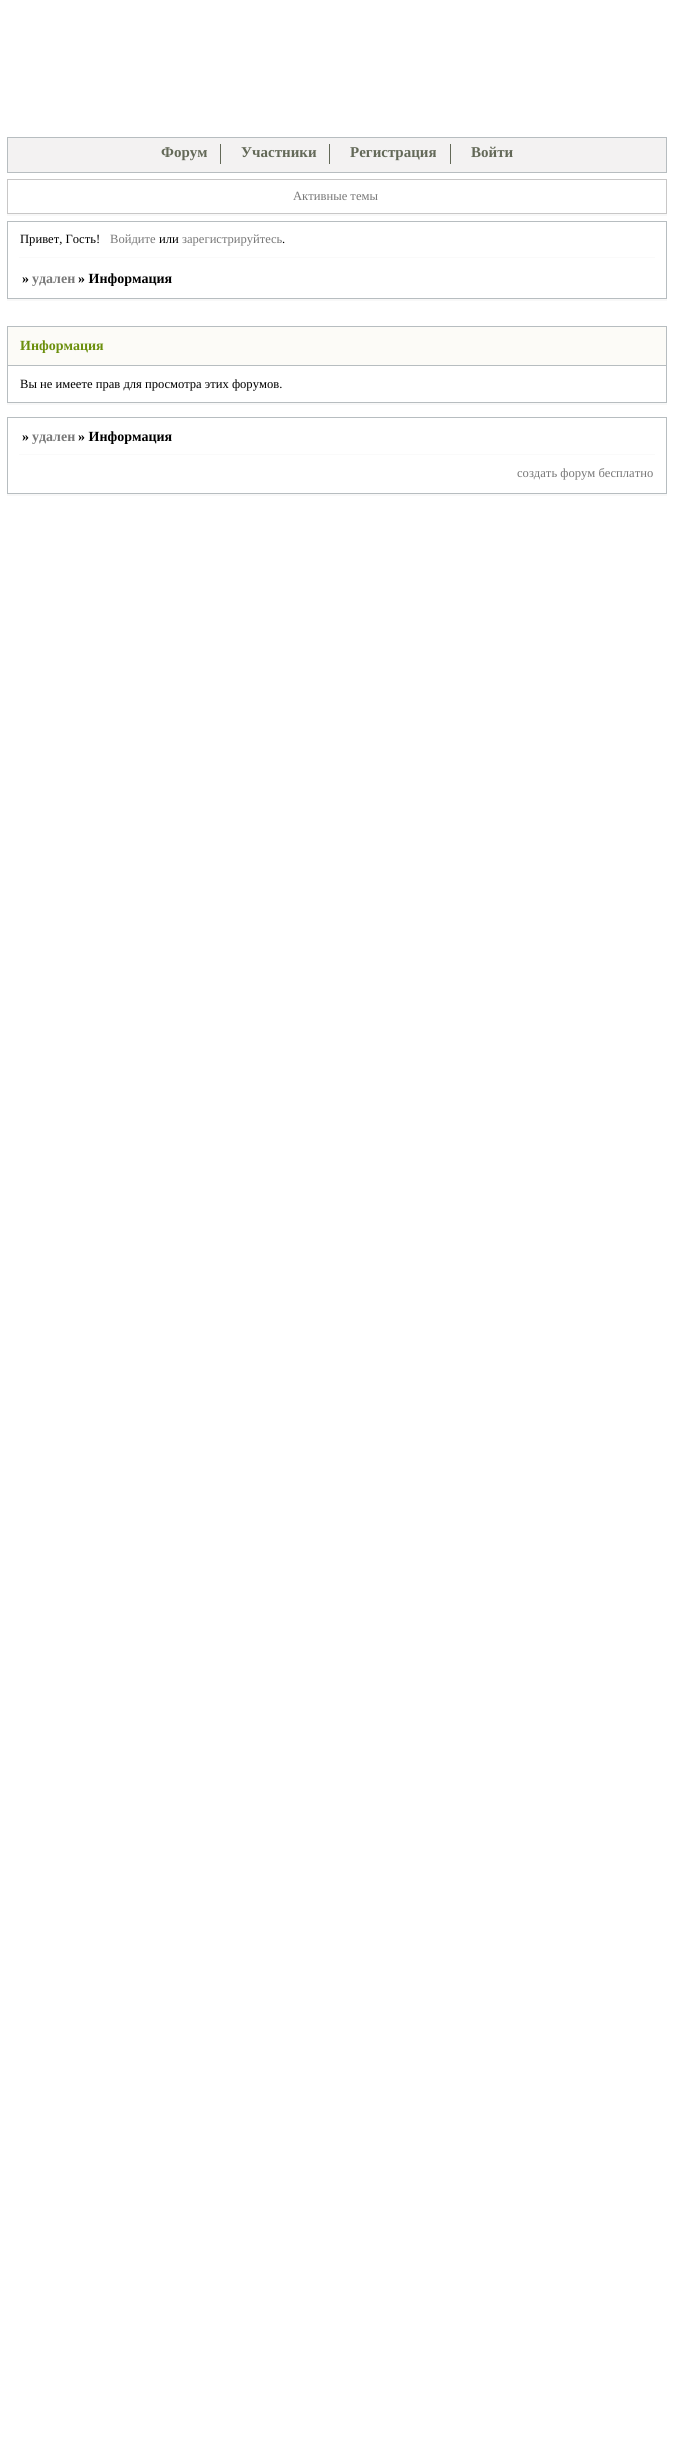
import math
import cairo

surface = cairo.ImageSurface(cairo.FORMAT_RGB24, 674, 2460)
ctx = cairo.Context(surface)
options = cairo.FontOptions()
options.set_hint_metrics(cairo.HINT_METRICS_OFF)
options.set_hint_style(cairo.HINT_STYLE_NONE)
ctx.set_font_options(options)
ctx.set_miter_limit(4)


ctx.set_source_rgb(1, 1, 1)
ctx.paint()
ctx.rectangle(7.5, 137.5, 659, 35)
ctx.set_source_rgb(0.718, 0.741, 0.753)
ctx.set_line_width(1)
ctx.stroke()
ctx.set_source_rgb(0.953, 0.949, 0.949)
ctx.rectangle(8, 138, 658, 34)
ctx.fill()
ctx.select_font_face("Liberation Serif", cairo.FONT_SLANT_NORMAL, cairo.FONT_WEIGHT_BOLD)
ctx.set_font_size(15)
ctx.set_source_rgb(0.388, 0.412, 0.345)
ctx.move_to(161, 157)
ctx.show_text("Форум")
ctx.move_to(241, 157)
ctx.show_text("Участники")
ctx.rectangle(220, 144, 1, 20)
ctx.fill()
ctx.move_to(350, 157)
ctx.show_text("Регистрация")
ctx.rectangle(329, 144, 1, 20)
ctx.fill()
ctx.move_to(471, 157)
ctx.show_text("Войти")
ctx.rectangle(450, 144, 1, 20)
ctx.fill()
ctx.set_source_rgb(0.969, 0.969, 0.969)
ctx.rectangle(7, 214, 660, 2)
ctx.fill()
ctx.rectangle(7.5, 179.5, 659, 34)
ctx.set_source_rgb(0.784, 0.78, 0.78)
ctx.stroke()
ctx.select_font_face("Liberation Serif")
ctx.set_font_size(12.6)
ctx.set_source_rgb(0.471, 0.471, 0.471)
ctx.move_to(293, 200)
ctx.show_text("Активные темы")
ctx.set_source_rgb(0.718, 0.741, 0.753)
ctx.rectangle(7, 221, 660, 1)
ctx.fill()
ctx.rectangle(666, 221, 1, 78)
ctx.fill()
ctx.rectangle(7, 221, 1, 38)
ctx.fill()
ctx.set_source_rgb(0, 0, 0)
ctx.move_to(20, 243)
ctx.show_text("Привет, Гость!")
ctx.set_source_rgb(0.471, 0.471, 0.471)
ctx.move_to(110, 243)
ctx.show_text("Войдите")
ctx.set_source_rgb(0, 0, 0)
ctx.move_to(159, 243)
ctx.show_text("или")
ctx.set_source_rgb(0.471, 0.471, 0.471)
ctx.move_to(182, 243)
ctx.show_text("зарегистрируйтесь")
ctx.set_source_rgb(0, 0, 0)
ctx.move_to(282, 243)
ctx.show_text(".")
ctx.set_source_rgb(0.98, 0.98, 0.98)
ctx.rectangle(19, 257, 636, 1)
ctx.fill()
ctx.set_source_rgb(0.969, 0.969, 0.969)
ctx.rectangle(7, 299, 660, 2)
ctx.fill()
ctx.set_source_rgb(0.718, 0.741, 0.753)
ctx.rectangle(7, 298, 660, 1)
ctx.fill()
ctx.rectangle(7, 257, 1, 42)
ctx.fill()
ctx.select_font_face("Liberation Serif", cairo.FONT_SLANT_NORMAL, cairo.FONT_WEIGHT_BOLD)
ctx.set_font_size(14)
ctx.set_source_rgb(0, 0, 0)
ctx.move_to(22, 283)
ctx.show_text("»")
ctx.set_source_rgb(0.471, 0.471, 0.471)
ctx.move_to(32, 283)
ctx.show_text("удален")
ctx.set_source_rgb(0, 0, 0)
ctx.move_to(78, 283)
ctx.show_text("» Информация")
ctx.set_source_rgb(0.988, 0.984, 0.965)
ctx.rectangle(8, 327, 658, 38)
ctx.fill()
ctx.set_source_rgb(0.718, 0.741, 0.753)
ctx.rectangle(7, 326, 660, 1)
ctx.fill()
ctx.rectangle(666, 326, 1, 39)
ctx.fill()
ctx.rectangle(7, 326, 1, 39)
ctx.fill()
ctx.set_source_rgb(0.42, 0.561, 0.047)
ctx.move_to(20, 350)
ctx.show_text("Информация")
ctx.set_source_rgb(0.969, 0.969, 0.969)
ctx.rectangle(7, 403, 660, 2)
ctx.fill()
ctx.rectangle(7.5, 365.5, 659, 37)
ctx.set_source_rgb(0.718, 0.741, 0.753)
ctx.stroke()
ctx.select_font_face("Liberation Serif")
ctx.set_font_size(12.6)
ctx.set_source_rgb(0, 0, 0)
ctx.move_to(20, 388)
ctx.show_text("Вы не имеете прав для просмотра этих форумов.")
ctx.set_source_rgb(0.718, 0.741, 0.753)
ctx.rectangle(7, 417, 660, 1)
ctx.fill()
ctx.rectangle(666, 454, 1, 40)
ctx.fill()
ctx.rectangle(666, 417, 1, 39)
ctx.fill()
ctx.rectangle(7, 493, 660, 1)
ctx.fill()
ctx.rectangle(7, 454, 1, 40)
ctx.fill()
ctx.rectangle(7, 417, 1, 39)
ctx.fill()
ctx.select_font_face("Liberation Serif", cairo.FONT_SLANT_NORMAL, cairo.FONT_WEIGHT_BOLD)
ctx.set_font_size(14)
ctx.set_source_rgb(0, 0, 0)
ctx.move_to(22, 441)
ctx.show_text("»")
ctx.set_source_rgb(0.471, 0.471, 0.471)
ctx.move_to(32, 441)
ctx.show_text("удален")
ctx.set_source_rgb(0, 0, 0)
ctx.move_to(78, 441)
ctx.show_text("» Информация")
ctx.set_source_rgb(0.98, 0.98, 0.98)
ctx.rectangle(19, 454, 636, 1)
ctx.fill()
ctx.set_source_rgb(0.969, 0.969, 0.969)
ctx.rectangle(7, 494, 660, 2)
ctx.fill()
ctx.select_font_face("Liberation Serif")
ctx.set_font_size(12.6)
ctx.set_source_rgb(0.471, 0.471, 0.471)
ctx.move_to(517, 477)
ctx.show_text("создать форум бесплатно")
surface.write_to_png("page.png")
